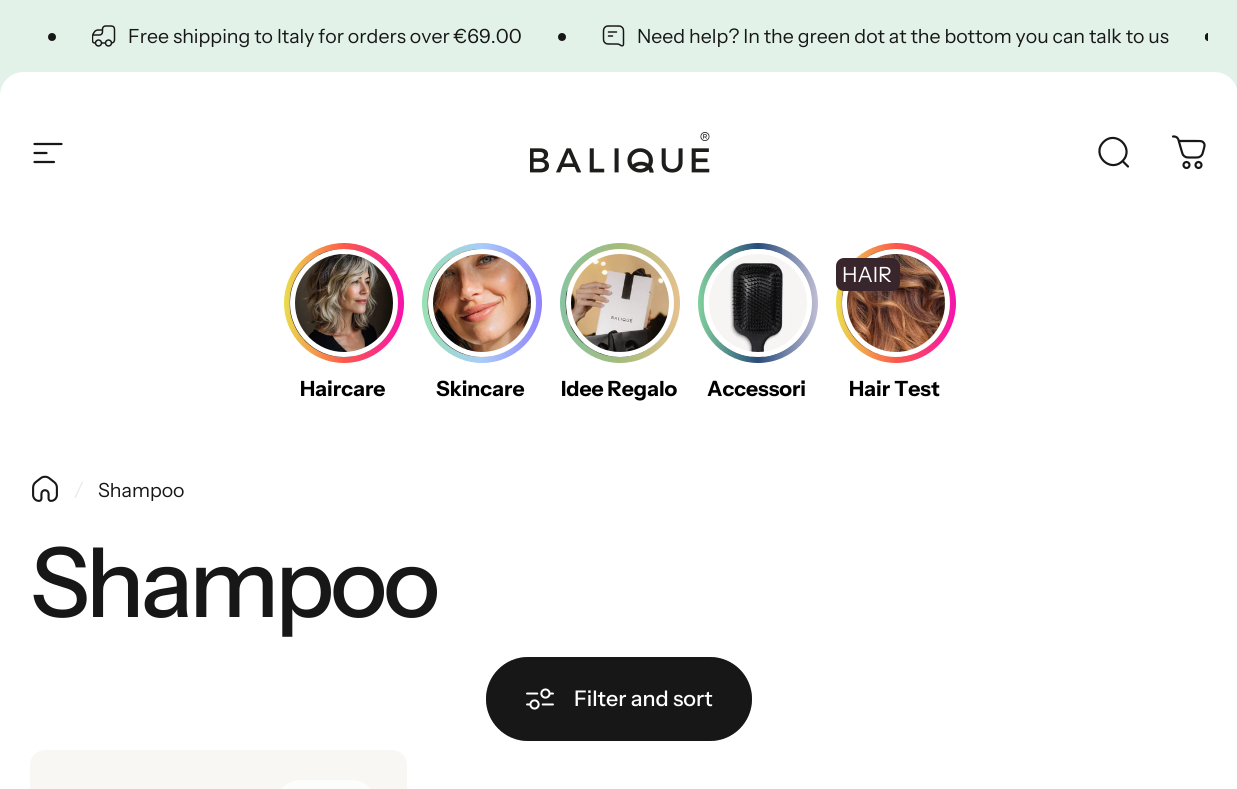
import math
import cairo

surface = cairo.ImageSurface(cairo.FORMAT_RGB24, 1237, 789)
ctx = cairo.Context(surface)
options = cairo.FontOptions()
options.set_hint_metrics(cairo.HINT_METRICS_OFF)
options.set_hint_style(cairo.HINT_STYLE_NONE)
ctx.set_font_options(options)
ctx.set_miter_limit(4)


def spaced_text(x, y, s, letter, word):
    ctx.move_to(x, y)
    for ch in s:
        ctx.show_text(ch)
        ctx.rel_move_to(letter + word * (ch == ' '), 0)


def round_rect(x, y, w, h, r):
    ctx.new_sub_path()
    for i, (u, v) in enumerate([(x + w - r, y + h - r), (x + r, y + h - r), (x + r, y + r), (x + w - r, y + r)]):
        ctx.arc(u, v, r, i * math.pi / 2, (i + 1) * math.pi / 2)
    ctx.close_path()


def picture(path, x, y, w, h):
    ctx.save()
    ctx.set_source_surface(cairo.ImageSurface.create_from_png(path), x, y)
    ctx.rectangle(x, y, w, h)
    ctx.fill()
    ctx.restore()


ctx.set_source_rgb(1, 1, 1)
ctx.paint()
ctx.set_source_rgb(0.886, 0.949, 0.914)
ctx.rectangle(0, 0, 1237, 24)
ctx.fill()
ctx.new_path()
ctx.move_to(24, 0)
ctx.line_to(1214, 0)
ctx.curve_to(1227.5, 0, 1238, 10.5, 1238, 24)
ctx.line_to(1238, 96)
ctx.line_to(0, 96)
ctx.line_to(0, 24)
ctx.curve_to(0, 10.5, 10.5, 0, 24, 0)
ctx.close_path()
ctx.fill()
ctx.set_source_rgb(0.09, 0.09, 0.09)
ctx.arc(52, 37, 3, 0, 2 * math.pi)
ctx.fill_preserve()
ctx.stroke()
picture("img1.png", 92, 25, 24, 22)
ctx.select_font_face("Instrument Sans")
ctx.set_font_size(19.5)
ctx.move_to(128, 43)
ctx.show_text("Free shipping to Italy for orders over €69.00")
ctx.new_path()
ctx.arc(562, 37, 3, 0, 2 * math.pi)
ctx.fill_preserve()
ctx.stroke()
picture("img2.png", 602, 25, 23, 22)
ctx.move_to(637, 43)
ctx.show_text("Need help? In the green dot at the bottom you can talk to us")
ctx.new_path()
ctx.move_to(1208.5, 33)
ctx.line_to(1208, 33)
ctx.line_to(1208, 41)
ctx.line_to(1208.5, 41)
ctx.curve_to(1206.5, 41, 1205, 39.5, 1205, 37.5)
ctx.line_to(1205, 36.5)
ctx.curve_to(1205, 34.5, 1206.5, 33, 1208.5, 33)
ctx.close_path()
ctx.fill()
ctx.save()
ctx.rectangle(30, 0, 1178, 72)
ctx.clip()
round_rect(1206, 34, 5, 6, 2.5)
ctx.stroke()
ctx.restore()
ctx.set_source_rgb(1, 1, 1)
ctx.new_path()
ctx.move_to(24, 72)
ctx.line_to(1214, 72)
ctx.curve_to(1227.5, 72, 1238, 82.5, 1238, 96)
ctx.line_to(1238, 234)
ctx.line_to(0, 234)
ctx.line_to(0, 96)
ctx.curve_to(0, 82.5, 10.5, 72, 24, 72)
ctx.close_path()
ctx.fill()
ctx.new_path()
ctx.move_to(34.5, 144)
ctx.line_to(61.5, 144)
ctx.move_to(34.5, 153)
ctx.line_to(46.5, 153)
ctx.move_to(34.5, 162)
ctx.line_to(54, 162)
ctx.set_source_rgb(0.09, 0.09, 0.09)
ctx.set_line_width(2.2)
ctx.set_line_cap(cairo.LINE_CAP_ROUND)
ctx.stroke()
picture("img3.png", 530, 132, 180, 41)
ctx.new_path()
ctx.move_to(1128, 166.5)
ctx.line_to(1122.5, 161)
ctx.move_to(1122.5, 161)
ctx.curve_to(1135, 148.5, 1116, 129.5, 1103.5, 142)
ctx.curve_to(1091, 154.5, 1110, 173.5, 1122.5, 161)
ctx.close_path()
ctx.stroke()
picture("img4.png", 1172, 135, 34, 35)
gradient = cairo.LinearGradient(284, 303, 404, 303)
gradient.add_color_stop_rgba(0, 0.918, 0.867, 0.302, 1)
gradient.add_color_stop_rgba(0.5, 0.992, 0.349, 0.286, 1)
gradient.add_color_stop_rgba(1, 0.965, 0.075, 0.682, 1)
ctx.set_source(gradient)
ctx.arc(344, 303, 60, 0, 2 * math.pi)
ctx.fill()
picture("img5.png", 289, 249, 109, 108)
ctx.arc(344, 303, 51.5, 0, 2 * math.pi)
ctx.set_source_rgb(1, 1, 1)
ctx.set_line_width(5)
ctx.set_line_cap(cairo.LINE_CAP_BUTT)
ctx.stroke()
ctx.select_font_face("Instrument Sans", cairo.FONT_SLANT_NORMAL, cairo.FONT_WEIGHT_BOLD)
ctx.set_font_size(21)
ctx.set_source_rgb(0, 0, 0)
ctx.move_to(300, 396)
ctx.show_text("Haircare")
gradient = cairo.LinearGradient(422, 303, 542, 303)
gradient.add_color_stop_rgba(0, 0.596, 0.886, 0.698, 1)
gradient.add_color_stop_rgba(0.5, 0.663, 0.8, 0.976, 1)
gradient.add_color_stop_rgba(1, 0.569, 0.514, 0.984, 1)
ctx.set_source(gradient)
ctx.new_path()
ctx.arc(482, 303, 60, 0, 2 * math.pi)
ctx.fill()
picture("img6.png", 427, 249, 109, 108)
ctx.arc(482, 303, 51.5, 0, 2 * math.pi)
ctx.set_source_rgb(1, 1, 1)
ctx.stroke()
ctx.set_source_rgb(0, 0, 0)
ctx.move_to(436, 396)
ctx.show_text("Skincare")
gradient = cairo.LinearGradient(560, 303, 680, 303)
gradient.add_color_stop_rgba(0, 0.529, 0.769, 0.635, 1)
gradient.add_color_stop_rgba(0.5, 0.643, 0.737, 0.482, 1)
gradient.add_color_stop_rgba(1, 0.902, 0.757, 0.557, 1)
ctx.set_source(gradient)
ctx.new_path()
ctx.arc(620, 303, 60, 0, 2 * math.pi)
ctx.fill()
picture("img7.png", 565, 249, 109, 108)
ctx.arc(620, 303, 51.5, 0, 2 * math.pi)
ctx.set_source_rgb(1, 1, 1)
ctx.stroke()
ctx.set_source_rgb(0, 0, 0)
ctx.move_to(561, 396)
ctx.show_text("Idee Regalo")
gradient = cairo.LinearGradient(698, 303, 818, 303)
gradient.add_color_stop_rgba(0, 0.502, 0.816, 0.612, 1)
gradient.add_color_stop_rgba(0.5, 0.157, 0.298, 0.482, 1)
gradient.add_color_stop_rgba(1, 0.753, 0.745, 0.835, 1)
ctx.set_source(gradient)
ctx.new_path()
ctx.arc(758, 303, 60, 0, 2 * math.pi)
ctx.fill()
picture("img8.png", 703, 249, 109, 108)
ctx.arc(758, 303, 51.5, 0, 2 * math.pi)
ctx.set_source_rgb(1, 1, 1)
ctx.stroke()
ctx.set_source_rgb(0, 0, 0)
ctx.move_to(707, 396)
ctx.show_text("Accessori")
gradient = cairo.LinearGradient(836, 303, 956, 303)
gradient.add_color_stop_rgba(0, 0.918, 0.867, 0.302, 1)
gradient.add_color_stop_rgba(0.5, 0.992, 0.349, 0.286, 1)
gradient.add_color_stop_rgba(1, 0.965, 0.075, 0.682, 1)
ctx.set_source(gradient)
ctx.new_path()
ctx.arc(896, 303, 60, 0, 2 * math.pi)
ctx.fill()
picture("img9.png", 841, 249, 109, 108)
ctx.arc(896, 303, 51.5, 0, 2 * math.pi)
ctx.set_source_rgb(1, 1, 1)
ctx.stroke()
ctx.set_source_rgb(0.224, 0.149, 0.173)
round_rect(836, 258, 64, 33, 8)
ctx.fill()
ctx.select_font_face("Instrument Sans")
ctx.set_source_rgb(1, 1, 1)
ctx.move_to(842, 282)
ctx.show_text("HAIR")
ctx.select_font_face("Instrument Sans", cairo.FONT_SLANT_NORMAL, cairo.FONT_WEIGHT_BOLD)
ctx.set_source_rgb(0, 0, 0)
ctx.move_to(849, 396)
ctx.show_text("Hair Test")
picture("img10.png", 32, 475, 26, 27)
ctx.set_source_rgb(0.91, 0.91, 0.91)
ctx.new_path()
ctx.move_to(82, 481.5)
ctx.line_to(83, 482)
ctx.line_to(75.5, 498.5)
ctx.line_to(74.5, 497.5)
ctx.close_path()
ctx.fill()
ctx.select_font_face("Instrument Sans")
ctx.set_font_size(19.5)
ctx.set_source_rgb(0.09, 0.09, 0.09)
ctx.move_to(98, 497)
ctx.show_text("Shampoo")
ctx.select_font_face("Instrument Sans Medium")
ctx.set_font_size(96.5)
spaced_text(30, 617, "Shampoo", -4, 0)
round_rect(486, 657, 266, 84, 42)
ctx.fill()
round_rect(487.5, 658.5, 263, 81, 40.5)
ctx.set_source_rgba(0.09, 0.09, 0.09, 0.45)
ctx.set_line_width(3)
ctx.stroke()
picture("img11.png", 526, 688, 28, 22)
ctx.set_font_size(21.5)
ctx.set_source_rgb(1, 1, 1)
ctx.move_to(574, 706)
ctx.show_text("Filter and sort")
ctx.set_source_rgb(0.969, 0.965, 0.957)
round_rect(30, 750, 377, 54, 15)
ctx.fill()
ctx.set_source_rgb(0.992, 0.992, 0.988)
round_rect(275, 780, 102, 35, 25.5)
ctx.fill()
surface.write_to_png("page.png")
